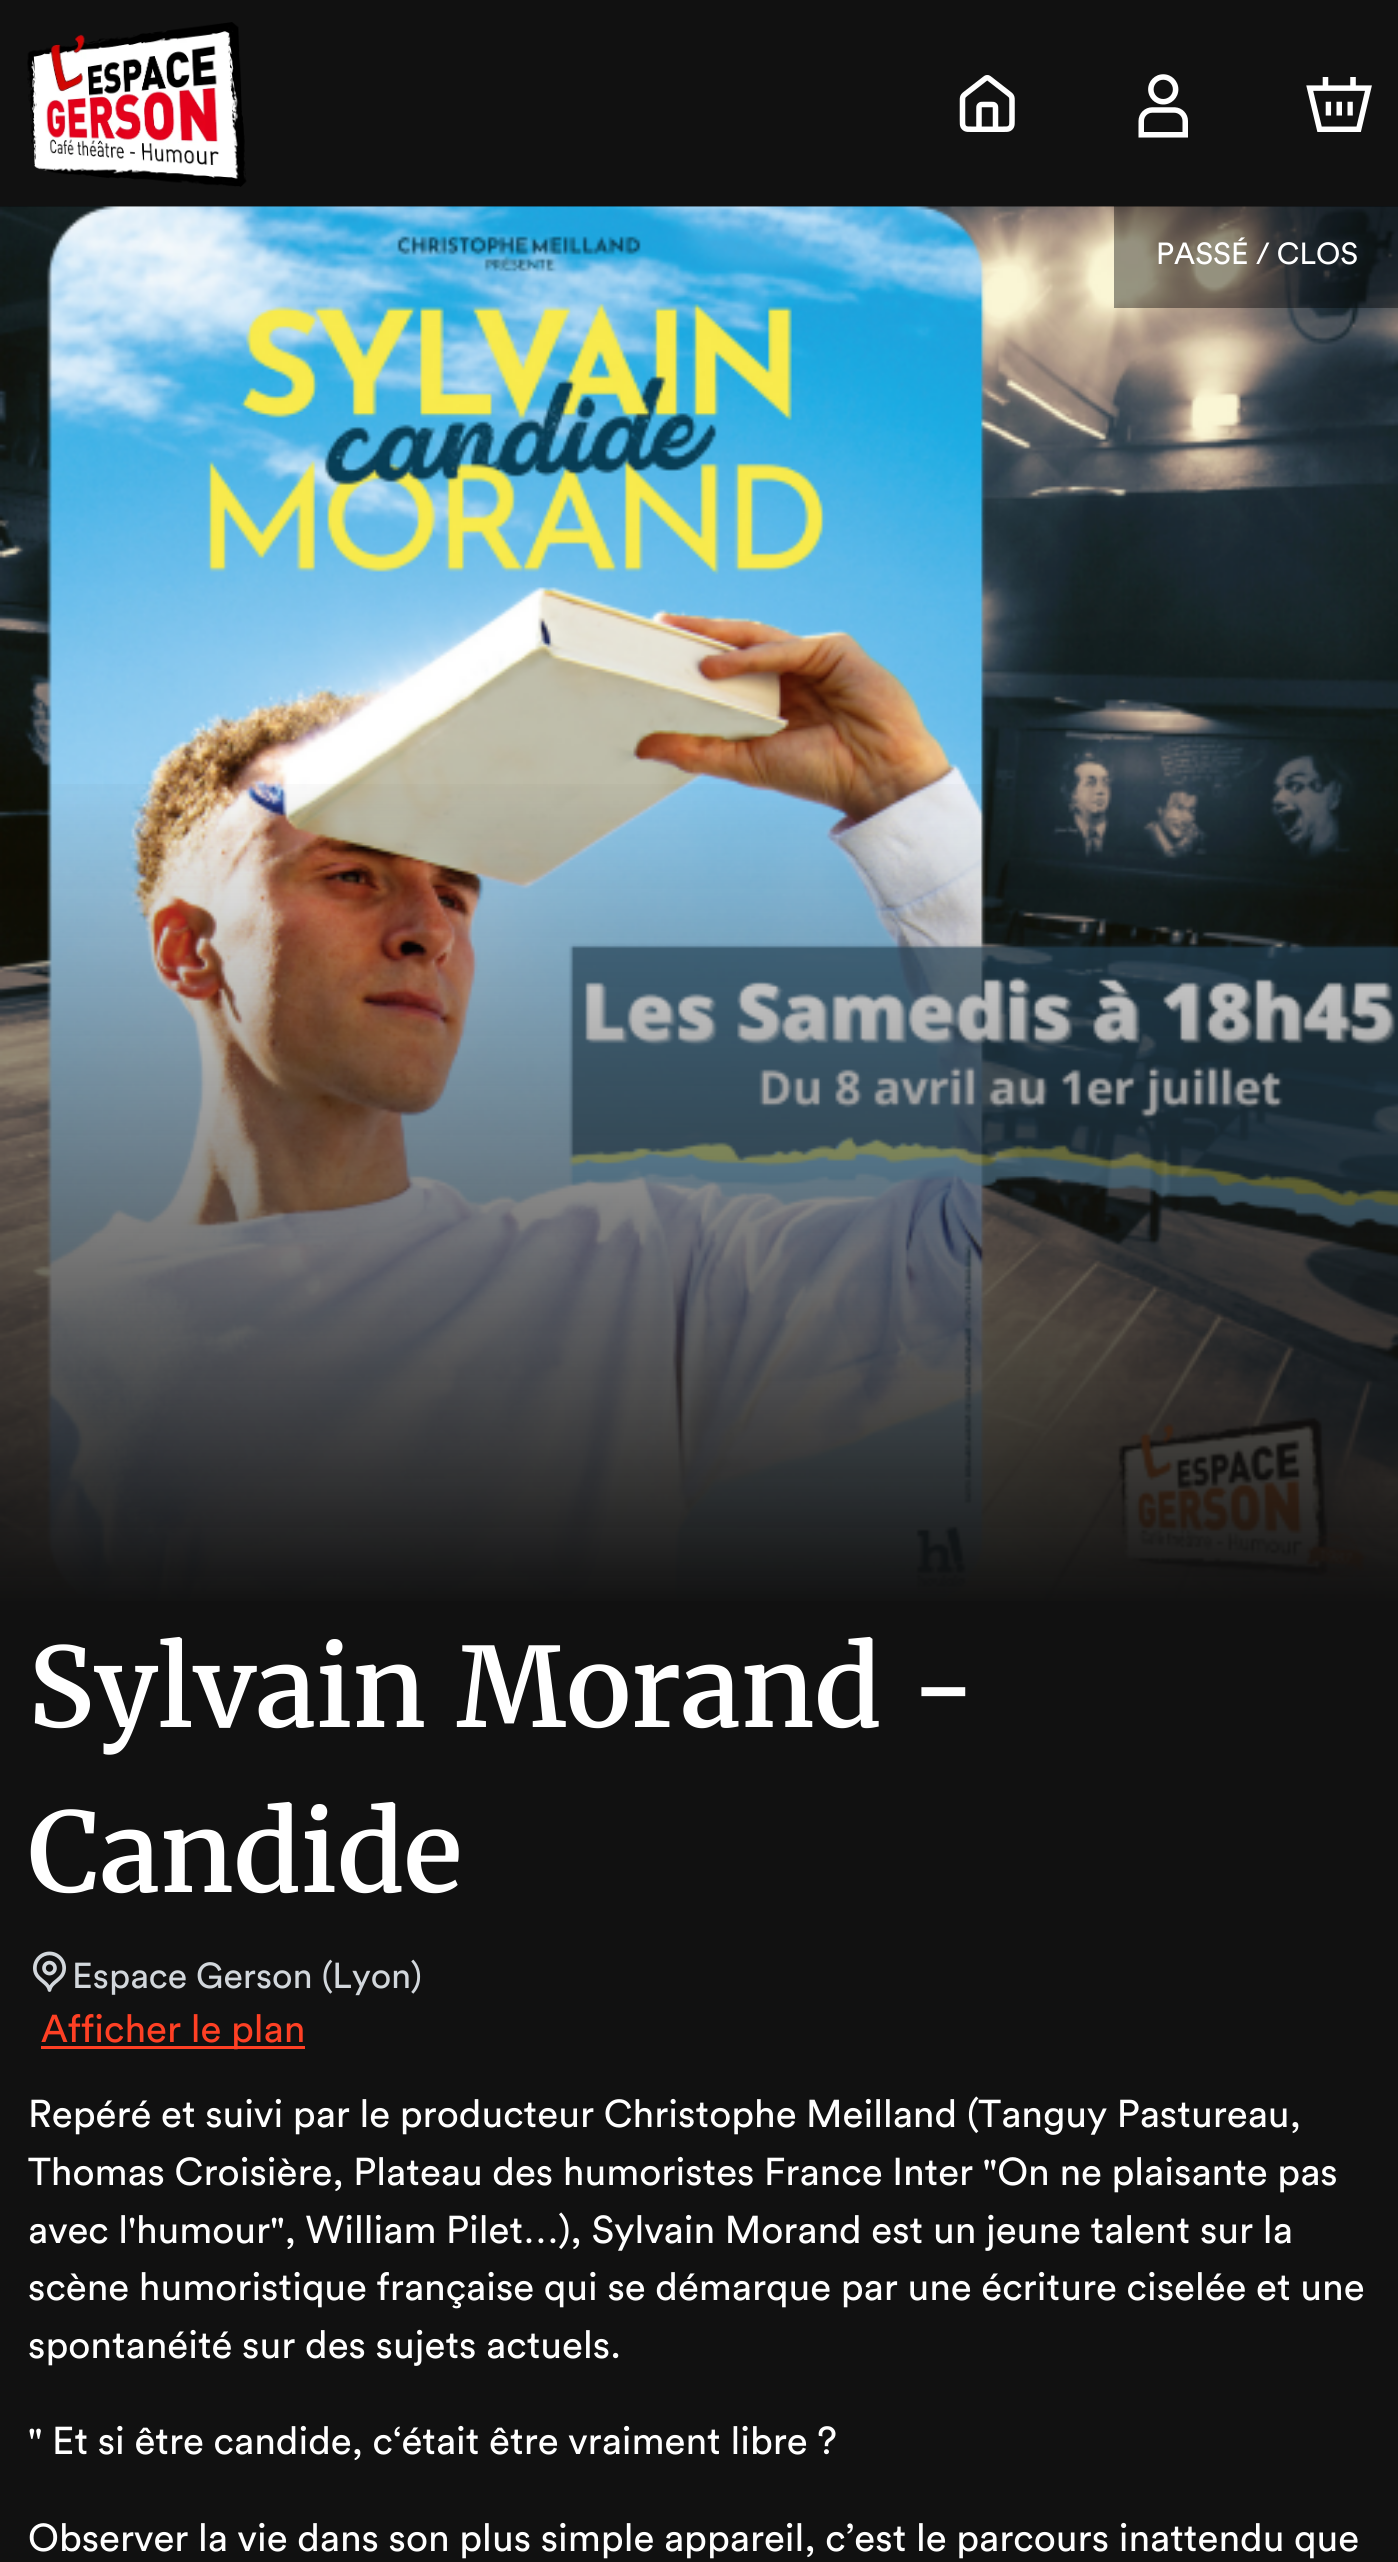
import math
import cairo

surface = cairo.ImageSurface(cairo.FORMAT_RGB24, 1398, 2562)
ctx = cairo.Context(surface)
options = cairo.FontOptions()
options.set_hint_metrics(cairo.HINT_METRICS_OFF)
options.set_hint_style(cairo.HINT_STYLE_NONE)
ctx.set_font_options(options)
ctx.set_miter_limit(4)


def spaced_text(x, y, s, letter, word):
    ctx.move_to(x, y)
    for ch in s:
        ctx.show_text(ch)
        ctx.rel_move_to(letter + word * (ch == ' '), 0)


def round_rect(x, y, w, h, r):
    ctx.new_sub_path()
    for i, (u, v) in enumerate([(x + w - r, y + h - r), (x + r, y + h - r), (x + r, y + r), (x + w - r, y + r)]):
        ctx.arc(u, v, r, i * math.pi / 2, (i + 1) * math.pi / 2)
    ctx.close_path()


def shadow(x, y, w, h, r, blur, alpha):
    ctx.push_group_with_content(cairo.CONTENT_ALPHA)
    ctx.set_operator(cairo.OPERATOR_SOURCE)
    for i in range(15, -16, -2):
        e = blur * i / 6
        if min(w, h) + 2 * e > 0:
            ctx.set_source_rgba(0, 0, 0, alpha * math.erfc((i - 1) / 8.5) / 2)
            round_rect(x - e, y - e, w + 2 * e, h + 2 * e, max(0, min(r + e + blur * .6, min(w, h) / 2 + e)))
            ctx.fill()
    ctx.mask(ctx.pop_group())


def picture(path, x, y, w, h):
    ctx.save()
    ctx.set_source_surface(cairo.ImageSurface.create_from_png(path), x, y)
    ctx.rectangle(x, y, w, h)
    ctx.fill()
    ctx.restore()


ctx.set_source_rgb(0.067, 0.067, 0.067)
ctx.paint()
ctx.save()
ctx.rectangle(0, 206, 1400, 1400)
ctx.clip()
ctx.set_source_rgb(0, 0, 0)
shadow(0, 206, 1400, 1400, 0, 69, 0.8)
ctx.restore()
picture("img1.png", 27, 22, 220, 165)
picture("img2.png", 959, 75, 56, 57)
picture("img3.png", 1138, 74, 50, 64)
picture("img4.png", 1306, 77, 66, 55)
picture("img5.png", 0, 206, 1398, 1395)
ctx.set_source_rgba(0, 0, 0, 0.4)
ctx.rectangle(1114, 206, 284, 102)
ctx.fill()
ctx.select_font_face("Circular")
ctx.set_font_size(30.25)
ctx.set_source_rgb(1, 1, 1)
ctx.move_to(1156, 264)
ctx.show_text("PASSÉ / CLOS")
gradient = cairo.LinearGradient(700, 206, 700, 1606)
gradient.add_color_stop_rgba(0.4, 0.067, 0.067, 0.067, 0)
gradient.add_color_stop_rgba(1, 0.067, 0.067, 0.067, 1)
ctx.set_source(gradient)
ctx.rectangle(0, 784, 1398, 822)
ctx.fill()
ctx.select_font_face("Merriweather SemiBold")
ctx.set_font_size(110)
ctx.set_source_rgb(1, 1, 1)
spaced_text(28, 1727, "Sylvain Morand -", 0, 4)
ctx.move_to(28, 1892)
ctx.show_text("Candide")
picture("img6.png", 33, 1951, 33, 41)
ctx.select_font_face("Circular")
ctx.set_font_size(35.75)
ctx.set_source_rgb(0.824, 0.843, 0.863)
ctx.move_to(72, 1988)
ctx.show_text("Espace Gerson (Lyon)")
ctx.set_source_rgb(1, 0.251, 0.141)
ctx.rectangle(41, 2046, 264, 3)
ctx.fill()
ctx.set_font_size(38.5)
ctx.move_to(41, 2042)
ctx.show_text("Afficher le plan")
ctx.set_source_rgb(1, 1, 1)
ctx.move_to(28, 2127)
ctx.show_text("Repéré et suivi par le producteur Christophe Meilland (Tanguy Pastureau,")
ctx.save()
ctx.rectangle(28, 2090, 1344, 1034)
ctx.clip()
ctx.move_to(28, 2185)
ctx.show_text("Thomas Croisière, Plateau des humoristes France Inter \"On ne plaisante pas")
ctx.restore()
ctx.move_to(28, 2243)
ctx.show_text("avec l'humour\", William Pilet…), Sylvain Morand est un jeune talent sur la")
ctx.move_to(28, 2300)
ctx.show_text("scène humoristique française qui se démarque par une écriture ciselée et une")
ctx.move_to(28, 2358)
ctx.show_text("spontanéité sur des sujets actuels.")
ctx.move_to(28, 2454)
ctx.show_text("\" Et si être candide, c‘était être vraiment libre ?")
ctx.move_to(28, 2551)
ctx.show_text("Observer la vie dans son plus simple appareil, c’est le parcours inattendu que")
surface.write_to_png("page.png")
